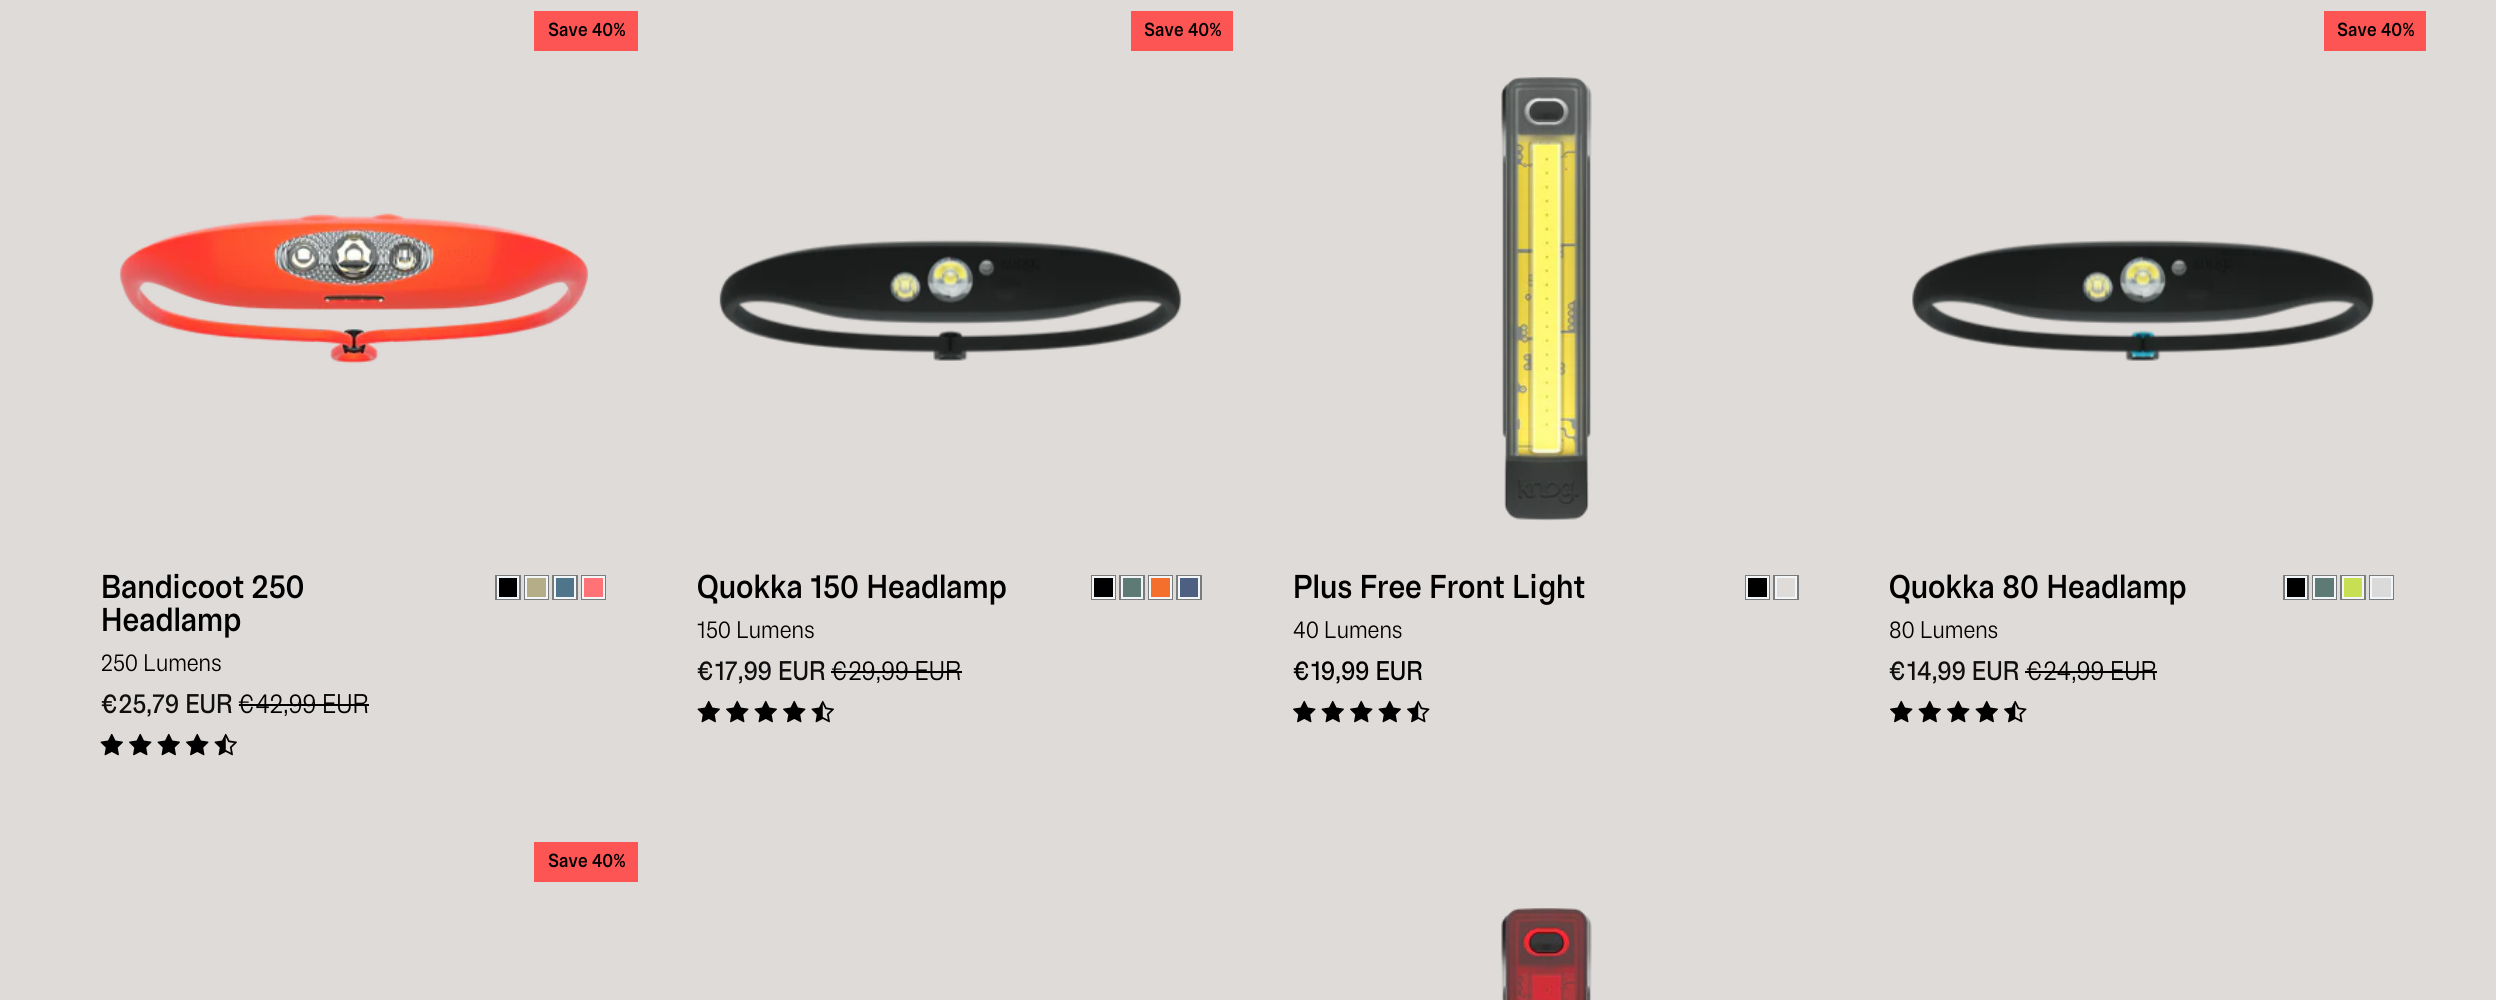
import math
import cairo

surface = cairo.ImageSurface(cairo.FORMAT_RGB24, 2496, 1000)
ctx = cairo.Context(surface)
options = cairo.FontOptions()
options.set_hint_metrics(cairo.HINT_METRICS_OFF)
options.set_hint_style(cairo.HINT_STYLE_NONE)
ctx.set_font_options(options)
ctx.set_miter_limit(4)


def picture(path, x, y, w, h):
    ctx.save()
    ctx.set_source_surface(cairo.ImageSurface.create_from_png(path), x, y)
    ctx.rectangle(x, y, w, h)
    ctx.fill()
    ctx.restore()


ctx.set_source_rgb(0.875, 0.859, 0.847)
ctx.paint()
ctx.set_source_rgb(0.992, 0.329, 0.329)
ctx.rectangle(534, 11, 104, 40)
ctx.fill()
ctx.select_font_face("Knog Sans", cairo.FONT_SLANT_NORMAL, cairo.FONT_WEIGHT_BOLD)
ctx.set_font_size(19)
ctx.set_source_rgb(0, 0, 0)
ctx.move_to(548, 36)
ctx.show_text("Save 40%")
picture("img1.png", 119, 213, 470, 151)
ctx.set_font_size(33)
ctx.move_to(101, 598)
ctx.show_text("Bandicoot 250")
ctx.move_to(101, 631)
ctx.show_text("Headlamp")
ctx.select_font_face("Knog Sans")
ctx.set_font_size(24)
ctx.move_to(101, 671)
ctx.show_text("250 Lumens")
ctx.select_font_face("Knog Sans Medium")
ctx.set_font_size(27)
ctx.set_source_rgb(0.059, 0.059, 0.059)
ctx.move_to(101, 713)
ctx.show_text("€25,79 EUR")
ctx.select_font_face("Knog Sans")
ctx.set_source_rgb(0, 0, 0)
ctx.move_to(238, 713)
ctx.show_text("€42,99 EUR")
ctx.rectangle(239, 704, 130, 2)
ctx.fill()
picture("img2.png", 100, 733, 23, 23)
picture("img3.png", 129, 733, 23, 23)
picture("img2.png", 157, 733, 23, 23)
picture("img3.png", 186, 733, 23, 23)
picture("img4.png", 214, 733, 23, 23)
ctx.rectangle(496, 576, 24, 23)
ctx.set_source_rgb(0.478, 0.482, 0.486)
ctx.stroke()
ctx.set_source_rgb(0, 0, 0)
ctx.rectangle(498, 577, 20, 21)
ctx.fill_preserve()
ctx.set_source_rgb(0.953, 0.961, 0.973)
ctx.stroke()
ctx.rectangle(525, 576, 23, 23)
ctx.set_source_rgb(0.478, 0.482, 0.486)
ctx.stroke()
ctx.set_source_rgb(0.71, 0.678, 0.533)
ctx.rectangle(526, 577, 21, 21)
ctx.fill_preserve()
ctx.set_source_rgb(0.953, 0.961, 0.973)
ctx.stroke()
ctx.rectangle(553, 576, 24, 23)
ctx.set_source_rgb(0.478, 0.482, 0.486)
ctx.stroke()
ctx.set_source_rgb(0.31, 0.459, 0.545)
ctx.rectangle(555, 577, 20, 21)
ctx.fill_preserve()
ctx.set_source_rgb(0.953, 0.961, 0.973)
ctx.stroke()
ctx.rectangle(582, 576, 23, 23)
ctx.set_source_rgb(0.478, 0.482, 0.486)
ctx.stroke()
ctx.set_source_rgb(1, 0.447, 0.463)
ctx.rectangle(583, 577, 21, 21)
ctx.fill_preserve()
ctx.set_source_rgb(0.953, 0.961, 0.973)
ctx.stroke()
ctx.set_source_rgb(0.992, 0.329, 0.329)
ctx.rectangle(1131, 11, 102, 40)
ctx.fill()
ctx.select_font_face("Knog Sans", cairo.FONT_SLANT_NORMAL, cairo.FONT_WEIGHT_BOLD)
ctx.set_font_size(19)
ctx.set_source_rgb(0, 0, 0)
ctx.move_to(1144, 36)
ctx.show_text("Save 40%")
picture("img5.png", 719, 239, 463, 122)
ctx.set_font_size(33)
ctx.move_to(697, 598)
ctx.show_text("Quokka 150 Headlamp")
ctx.select_font_face("Knog Sans")
ctx.set_font_size(24)
ctx.move_to(697, 638)
ctx.show_text("150 Lumens")
ctx.select_font_face("Knog Sans Medium")
ctx.set_font_size(27)
ctx.set_source_rgb(0.059, 0.059, 0.059)
ctx.move_to(697, 680)
ctx.show_text("€17,99 EUR")
ctx.select_font_face("Knog Sans")
ctx.set_source_rgb(0, 0, 0)
ctx.move_to(831, 680)
ctx.show_text("€29,99 EUR")
ctx.rectangle(831, 671, 131, 2)
ctx.fill()
picture("img2.png", 697, 700, 23, 23)
picture("img3.png", 726, 700, 23, 23)
picture("img2.png", 754, 700, 23, 23)
picture("img3.png", 783, 700, 23, 23)
picture("img4.png", 811, 700, 23, 23)
ctx.rectangle(1092, 576, 23, 23)
ctx.set_source_rgb(0.478, 0.482, 0.486)
ctx.stroke()
ctx.set_source_rgb(0, 0, 0)
ctx.rectangle(1093, 577, 21, 21)
ctx.fill_preserve()
ctx.set_source_rgb(0.953, 0.961, 0.973)
ctx.stroke()
ctx.rectangle(1120, 576, 24, 23)
ctx.set_source_rgb(0.478, 0.482, 0.486)
ctx.stroke()
ctx.set_source_rgb(0.369, 0.478, 0.459)
ctx.rectangle(1122, 577, 20, 21)
ctx.fill_preserve()
ctx.set_source_rgb(0.953, 0.961, 0.973)
ctx.stroke()
ctx.rectangle(1149, 576, 23, 23)
ctx.set_source_rgb(0.478, 0.482, 0.486)
ctx.stroke()
ctx.set_source_rgb(0.953, 0.435, 0.169)
ctx.rectangle(1150, 577, 21, 21)
ctx.fill_preserve()
ctx.set_source_rgb(0.953, 0.961, 0.973)
ctx.stroke()
ctx.rectangle(1177, 576, 24, 23)
ctx.set_source_rgb(0.478, 0.482, 0.486)
ctx.stroke()
ctx.set_source_rgb(0.306, 0.376, 0.506)
ctx.rectangle(1179, 577, 20, 21)
ctx.fill_preserve()
ctx.set_source_rgb(0.953, 0.961, 0.973)
ctx.stroke()
picture("img6.png", 1501, 77, 91, 444)
ctx.select_font_face("Knog Sans", cairo.FONT_SLANT_NORMAL, cairo.FONT_WEIGHT_BOLD)
ctx.set_font_size(33)
ctx.set_source_rgb(0, 0, 0)
ctx.move_to(1293, 598)
ctx.show_text("Plus Free Front Light")
ctx.select_font_face("Knog Sans")
ctx.set_font_size(24)
ctx.move_to(1293, 638)
ctx.show_text("40 Lumens")
ctx.select_font_face("Knog Sans Medium")
ctx.set_font_size(27)
ctx.move_to(1293, 680)
ctx.show_text("€19,99 EUR")
picture("img3.png", 1293, 700, 23, 23)
picture("img2.png", 1321, 700, 23, 23)
picture("img3.png", 1350, 700, 23, 23)
picture("img2.png", 1378, 700, 23, 23)
picture("img7.png", 1407, 700, 23, 23)
ctx.rectangle(1746, 576, 23, 23)
ctx.set_source_rgb(0.478, 0.482, 0.486)
ctx.stroke()
ctx.set_source_rgb(0, 0, 0)
ctx.rectangle(1747, 577, 21, 21)
ctx.fill_preserve()
ctx.set_source_rgb(0.953, 0.961, 0.973)
ctx.stroke()
ctx.rectangle(1774, 576, 24, 23)
ctx.set_source_rgb(0.478, 0.482, 0.486)
ctx.stroke()
ctx.rectangle(1776, 577, 20, 21)
ctx.set_source_rgb(0.953, 0.961, 0.973)
ctx.stroke()
ctx.set_source_rgb(0.992, 0.329, 0.329)
ctx.rectangle(2324, 11, 102, 40)
ctx.fill()
ctx.select_font_face("Knog Sans", cairo.FONT_SLANT_NORMAL, cairo.FONT_WEIGHT_BOLD)
ctx.set_font_size(19)
ctx.set_source_rgb(0, 0, 0)
ctx.move_to(2337, 36)
ctx.show_text("Save 40%")
picture("img8.png", 1912, 239, 463, 122)
ctx.set_font_size(33)
ctx.move_to(1889, 598)
ctx.show_text("Quokka 80 Headlamp")
ctx.select_font_face("Knog Sans")
ctx.set_font_size(24)
ctx.move_to(1889, 638)
ctx.show_text("80 Lumens")
ctx.select_font_face("Knog Sans Medium")
ctx.set_font_size(27)
ctx.set_source_rgb(0.059, 0.059, 0.059)
ctx.move_to(1889, 680)
ctx.show_text("€14,99 EUR")
ctx.select_font_face("Knog Sans")
ctx.set_source_rgb(0, 0, 0)
ctx.move_to(2026, 680)
ctx.show_text("€24,99 EUR")
ctx.rectangle(2025, 671, 132, 2)
ctx.fill()
picture("img3.png", 1890, 700, 23, 23)
picture("img2.png", 1918, 700, 23, 23)
picture("img3.png", 1947, 700, 23, 23)
picture("img2.png", 1975, 700, 23, 23)
picture("img7.png", 2004, 700, 23, 23)
ctx.rectangle(2284, 576, 24, 23)
ctx.set_source_rgb(0.478, 0.482, 0.486)
ctx.stroke()
ctx.set_source_rgb(0, 0, 0)
ctx.rectangle(2286, 577, 20, 21)
ctx.fill_preserve()
ctx.set_source_rgb(0.953, 0.961, 0.973)
ctx.stroke()
ctx.rectangle(2313, 576, 23, 23)
ctx.set_source_rgb(0.478, 0.482, 0.486)
ctx.stroke()
ctx.set_source_rgb(0.369, 0.478, 0.459)
ctx.rectangle(2314, 577, 21, 21)
ctx.fill_preserve()
ctx.set_source_rgb(0.953, 0.961, 0.973)
ctx.stroke()
ctx.rectangle(2341, 576, 24, 23)
ctx.set_source_rgb(0.478, 0.482, 0.486)
ctx.stroke()
ctx.set_source_rgb(0.788, 0.875, 0.325)
ctx.rectangle(2343, 577, 20, 21)
ctx.fill_preserve()
ctx.set_source_rgb(0.953, 0.961, 0.973)
ctx.stroke()
ctx.rectangle(2370, 576, 23, 23)
ctx.set_source_rgb(0.478, 0.482, 0.486)
ctx.stroke()
ctx.set_source_rgb(0.855, 0.855, 0.855)
ctx.rectangle(2371, 577, 21, 21)
ctx.fill_preserve()
ctx.set_source_rgb(0.953, 0.961, 0.973)
ctx.stroke()
ctx.set_source_rgb(0.992, 0.329, 0.329)
ctx.rectangle(534, 842, 104, 40)
ctx.fill()
ctx.select_font_face("Knog Sans", cairo.FONT_SLANT_NORMAL, cairo.FONT_WEIGHT_BOLD)
ctx.set_font_size(19)
ctx.set_source_rgb(0, 0, 0)
ctx.move_to(548, 867)
ctx.show_text("Save 40%")
picture("img9.png", 1501, 908, 91, 92)
surface.write_to_png("page.png")
